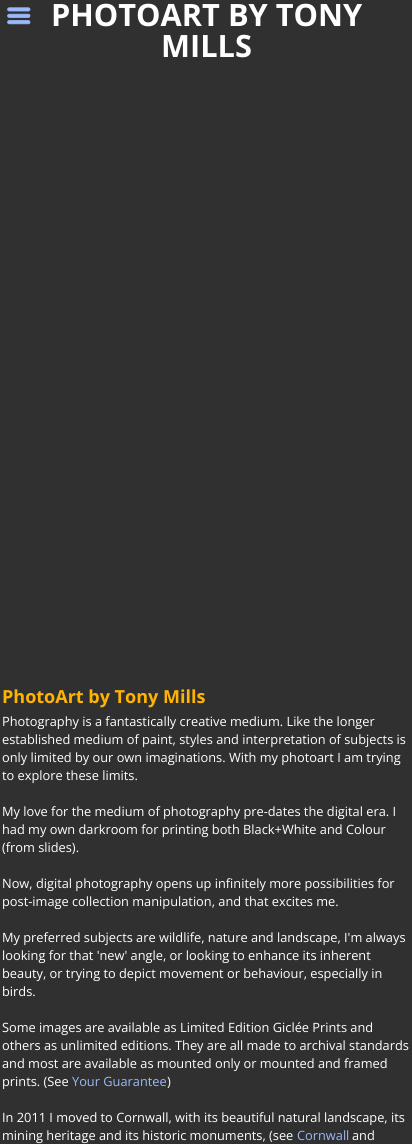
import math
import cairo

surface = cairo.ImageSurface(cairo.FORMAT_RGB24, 412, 1144)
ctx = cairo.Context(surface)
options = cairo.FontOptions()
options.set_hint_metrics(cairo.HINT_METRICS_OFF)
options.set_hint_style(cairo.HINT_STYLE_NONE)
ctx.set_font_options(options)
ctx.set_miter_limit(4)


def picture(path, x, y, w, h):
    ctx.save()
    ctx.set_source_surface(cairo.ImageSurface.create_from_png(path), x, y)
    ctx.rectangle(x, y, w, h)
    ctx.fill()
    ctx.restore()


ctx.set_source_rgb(0.188, 0.188, 0.188)
ctx.paint()
picture("img1.png", 7, 7, 24, 18)
ctx.select_font_face("Open Sans", cairo.FONT_SLANT_NORMAL, cairo.FONT_WEIGHT_BOLD)
ctx.set_font_size(30.75)
ctx.set_source_rgb(1, 1, 1)
ctx.move_to(51, 26)
ctx.show_text("PHOTOART BY TONY")
ctx.move_to(161, 57)
ctx.show_text("MILLS")
ctx.set_font_size(18)
ctx.set_source_rgb(1, 0.702, 0.012)
ctx.move_to(2, 703)
ctx.show_text("PhotoArt by Tony Mills")
ctx.select_font_face("Open Sans")
ctx.set_font_size(12.8)
ctx.set_source_rgb(1, 1, 1)
ctx.move_to(2, 726)
ctx.show_text("Photography is a fantastically creative medium. Like the longer")
ctx.move_to(2, 744)
ctx.show_text("established medium of paint, styles and interpretation of subjects is")
ctx.move_to(2, 762)
ctx.show_text("only limited by our own imaginations. With my photoart I am trying")
ctx.move_to(2, 780)
ctx.show_text("to explore these limits.")
ctx.move_to(2, 816)
ctx.show_text("My love for the medium of photography pre-dates the digital era. I")
ctx.move_to(2, 834)
ctx.show_text("had my own darkroom for printing both Black+White and Colour")
ctx.move_to(2, 852)
ctx.show_text("(from slides).")
ctx.move_to(2, 888)
ctx.show_text("Now, digital photography opens up infinitely more possibilities for")
ctx.move_to(2, 906)
ctx.show_text("post-image collection manipulation, and that excites me.")
ctx.move_to(2, 942)
ctx.show_text("My preferred subjects are wildlife, nature and landscape, I'm always")
ctx.move_to(2, 960)
ctx.show_text("looking for that 'new' angle, or looking to enhance its inherent")
ctx.move_to(2, 978)
ctx.show_text("beauty, or trying to depict movement or behaviour, especially in")
ctx.move_to(2, 996)
ctx.show_text("birds.")
ctx.move_to(2, 1032)
ctx.show_text("Some images are available as Limited Edition Giclée Prints and")
ctx.move_to(2, 1050)
ctx.show_text("others as unlimited editions. They are all made to archival standards")
ctx.move_to(2, 1068)
ctx.show_text("and most are available as mounted only or mounted and framed")
ctx.move_to(2, 1086)
ctx.show_text("prints. (See")
ctx.set_source_rgb(0.6, 0.725, 0.98)
ctx.move_to(72, 1086)
ctx.show_text("Your Guarantee")
ctx.set_source_rgb(1, 1, 1)
ctx.move_to(167, 1086)
ctx.show_text(")")
ctx.move_to(2, 1122)
ctx.show_text("In 2011 I moved to Cornwall, with its beautiful natural landscape, its")
ctx.move_to(2, 1140)
ctx.show_text("mining heritage and its historic monuments, (see")
ctx.set_source_rgb(0.6, 0.725, 0.98)
ctx.move_to(297, 1140)
ctx.show_text("Cornwall")
ctx.set_source_rgb(1, 1, 1)
ctx.move_to(352, 1140)
ctx.show_text("and")
surface.write_to_png("page.png")
